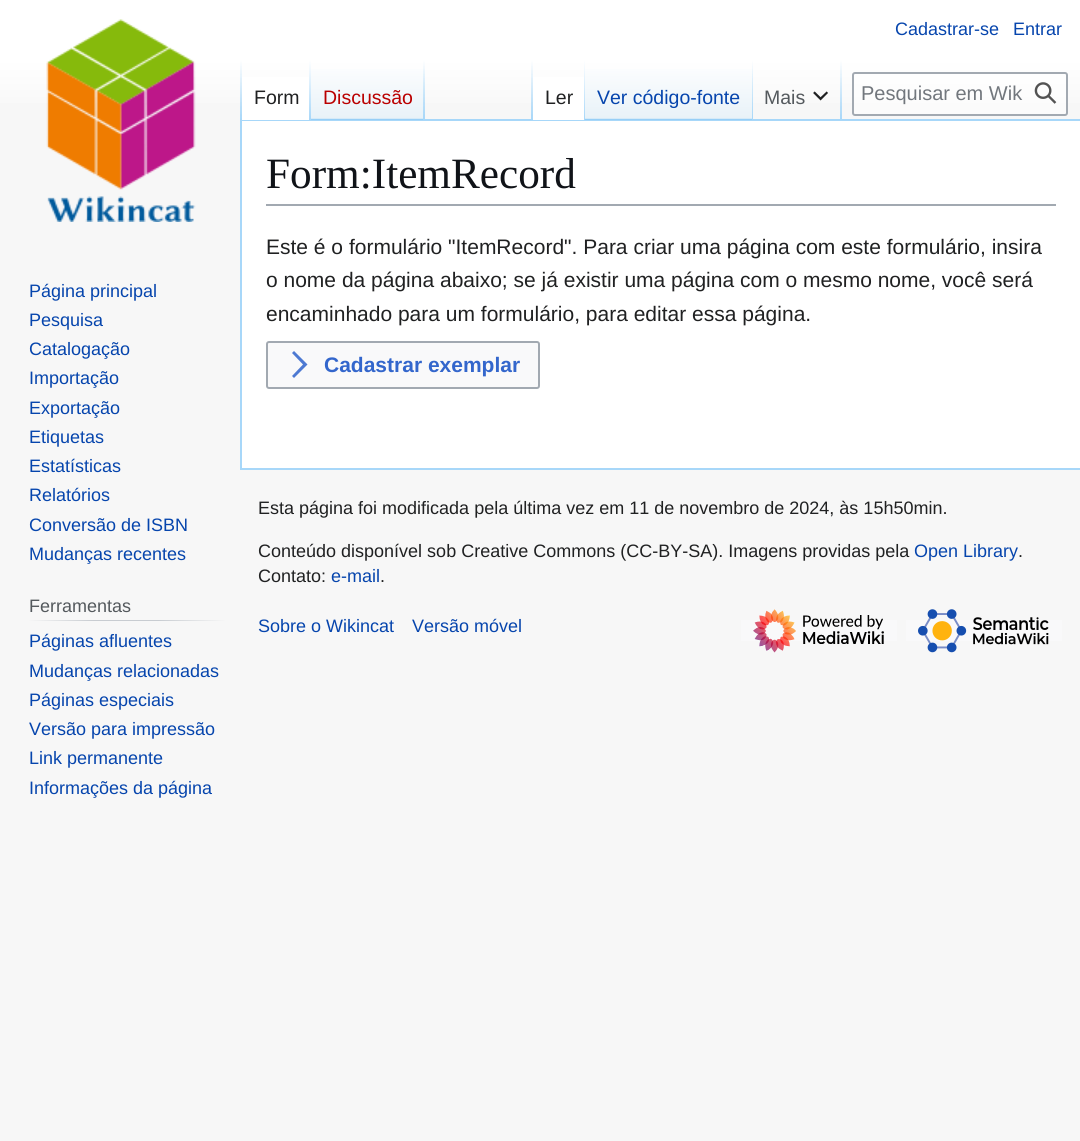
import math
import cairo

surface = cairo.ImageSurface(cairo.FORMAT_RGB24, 1080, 1141)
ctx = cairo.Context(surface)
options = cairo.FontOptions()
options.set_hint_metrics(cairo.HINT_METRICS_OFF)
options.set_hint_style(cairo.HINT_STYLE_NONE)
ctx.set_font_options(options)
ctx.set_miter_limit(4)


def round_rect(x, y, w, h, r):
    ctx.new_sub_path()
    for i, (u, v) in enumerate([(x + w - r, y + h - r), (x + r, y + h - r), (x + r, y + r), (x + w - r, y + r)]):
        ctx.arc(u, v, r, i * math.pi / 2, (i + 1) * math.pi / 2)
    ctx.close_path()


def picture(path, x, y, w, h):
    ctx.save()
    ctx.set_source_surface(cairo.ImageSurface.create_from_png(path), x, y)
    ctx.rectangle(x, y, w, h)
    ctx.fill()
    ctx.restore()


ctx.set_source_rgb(0.965, 0.965, 0.965)
ctx.paint()
gradient = cairo.LinearGradient(540, 0, 540, 120)
gradient.add_color_stop_rgba(0.5, 1, 1, 1, 1)
gradient.add_color_stop_rgba(1, 0.965, 0.965, 0.965, 1)
ctx.set_source(gradient)
ctx.rectangle(0, 0, 1080, 103)
ctx.fill()
ctx.select_font_face("Liberation Sans")
ctx.set_font_size(18)
ctx.set_source_rgb(0.024, 0.271, 0.678)
ctx.move_to(895, 35)
ctx.show_text("Cadastrar-se")
ctx.move_to(1013, 35)
ctx.show_text("Entrar")
ctx.set_source_rgb(0.655, 0.843, 0.976)
ctx.rectangle(240, 119, 840, 2)
ctx.fill()
ctx.rectangle(240, 468, 840, 2)
ctx.fill()
ctx.rectangle(240, 119, 2, 351)
ctx.fill()
gradient = cairo.LinearGradient(241, 60, 241, 120)
gradient.add_color_stop_rgba(0, 0.655, 0.843, 0.976, 0)
gradient.add_color_stop_rgba(1, 0.655, 0.843, 0.976, 1)
ctx.set_source(gradient)
ctx.rectangle(240, 60, 2, 60)
ctx.fill()
ctx.set_source_rgb(1, 1, 1)
ctx.rectangle(242, 77, 67, 43)
ctx.fill()
gradient = cairo.LinearGradient(310, 60, 310, 120)
gradient.add_color_stop_rgba(0, 1, 1, 1, 1)
gradient.add_color_stop_rgba(1, 0.655, 0.843, 0.976, 1)
ctx.set_source(gradient)
ctx.rectangle(309, 60, 2, 60)
ctx.fill()
ctx.set_font_size(19.5)
ctx.set_source_rgb(0.125, 0.129, 0.133)
ctx.move_to(254, 104)
ctx.show_text("Form")
gradient = cairo.LinearGradient(368, 120, 368, 60)
gradient.add_color_stop_rgba(0, 0.467, 0.757, 0.965, 1)
gradient.add_color_stop_rgba(0.03, 0.91, 0.949, 0.973, 1)
gradient.add_color_stop_rgba(1, 1, 1, 1, 1)
ctx.set_source(gradient)
ctx.rectangle(311, 69, 114, 51)
ctx.fill()
gradient = cairo.LinearGradient(424, 60, 424, 120)
gradient.add_color_stop_rgba(0, 0.655, 0.843, 0.976, 0)
gradient.add_color_stop_rgba(1, 0.655, 0.843, 0.976, 1)
ctx.set_source(gradient)
ctx.rectangle(423, 60, 2, 60)
ctx.fill()
ctx.set_source_rgb(0.729, 0, 0)
ctx.move_to(323, 104)
ctx.show_text("Discussão")
gradient = cairo.LinearGradient(532, 60, 532, 120)
gradient.add_color_stop_rgba(0, 0.655, 0.843, 0.976, 0)
gradient.add_color_stop_rgba(1, 0.655, 0.843, 0.976, 1)
ctx.set_source(gradient)
ctx.rectangle(531, 60, 2, 60)
ctx.fill()
ctx.set_source_rgb(1, 1, 1)
ctx.rectangle(533, 77, 51, 43)
ctx.fill()
gradient = cairo.LinearGradient(584, 60, 584, 120)
gradient.add_color_stop_rgba(0, 1, 1, 1, 1)
gradient.add_color_stop_rgba(1, 0.655, 0.843, 0.976, 1)
ctx.set_source(gradient)
ctx.rectangle(584, 60, 1, 60)
ctx.fill()
ctx.set_source_rgb(0.125, 0.129, 0.133)
ctx.move_to(545, 104)
ctx.show_text("Ler")
gradient = cairo.LinearGradient(669, 120, 669, 60)
gradient.add_color_stop_rgba(0, 0.467, 0.757, 0.965, 1)
gradient.add_color_stop_rgba(0.03, 0.91, 0.949, 0.973, 1)
gradient.add_color_stop_rgba(1, 1, 1, 1, 1)
ctx.set_source(gradient)
ctx.rectangle(585, 69, 168, 51)
ctx.fill()
gradient = cairo.LinearGradient(752, 60, 752, 120)
gradient.add_color_stop_rgba(0, 0.655, 0.843, 0.976, 0)
gradient.add_color_stop_rgba(1, 0.655, 0.843, 0.976, 1)
ctx.set_source(gradient)
ctx.rectangle(752, 60, 1, 60)
ctx.fill()
ctx.set_source_rgb(0.024, 0.271, 0.678)
ctx.move_to(597, 104)
ctx.show_text("Ver código-fonte")
gradient = cairo.LinearGradient(841, 60, 841, 120)
gradient.add_color_stop_rgba(0, 0.655, 0.843, 0.976, 0)
gradient.add_color_stop_rgba(1, 0.655, 0.843, 0.976, 1)
ctx.set_source(gradient)
ctx.rectangle(840, 60, 2, 60)
ctx.fill()
ctx.set_source_rgb(0.329, 0.349, 0.365)
ctx.move_to(764, 104)
ctx.show_text("Mais")
picture("img1.png", 813, 91, 15, 10)
ctx.set_source_rgba(1, 1, 1, 0.5)
round_rect(853, 73, 214, 42, 2)
ctx.fill_preserve()
ctx.set_source_rgb(0.635, 0.663, 0.694)
ctx.stroke()
ctx.set_font_size(20)
ctx.set_source_rgb(0.447, 0.467, 0.49)
ctx.move_to(861, 100)
ctx.show_text("Pesquisar em Wik")
picture("img2.png", 1034, 82, 23, 22)
picture("img3.png", 46, 19, 150, 203)
ctx.set_font_size(18)
ctx.set_source_rgb(0.024, 0.271, 0.678)
ctx.move_to(29, 297)
ctx.show_text("Página principal")
ctx.move_to(29, 326)
ctx.show_text("Pesquisa")
ctx.move_to(29, 355)
ctx.show_text("Catalogação")
ctx.move_to(29, 384)
ctx.show_text("Importação")
ctx.move_to(29, 414)
ctx.show_text("Exportação")
ctx.move_to(29, 443)
ctx.show_text("Etiquetas")
ctx.move_to(29, 472)
ctx.show_text("Estatísticas")
ctx.move_to(29, 501)
ctx.show_text("Relatórios")
ctx.move_to(29, 531)
ctx.show_text("Conversão de ISBN")
ctx.move_to(29, 560)
ctx.show_text("Mudanças recentes")
gradient = cairo.LinearGradient(29, 620, 225, 620)
gradient.add_color_stop_rgba(0, 0.965, 0.965, 0.965, 1)
gradient.add_color_stop_rgba(0.33, 0.784, 0.8, 0.82, 1)
gradient.add_color_stop_rgba(0.66, 0.784, 0.8, 0.82, 1)
gradient.add_color_stop_rgba(1, 0.965, 0.965, 0.965, 1)
ctx.set_source(gradient)
ctx.rectangle(29, 620, 196, 1)
ctx.fill()
ctx.set_source_rgb(0.329, 0.349, 0.365)
ctx.move_to(29, 612)
ctx.show_text("Ferramentas")
ctx.set_source_rgb(0.024, 0.271, 0.678)
ctx.move_to(29, 647)
ctx.show_text("Páginas afluentes")
ctx.move_to(29, 677)
ctx.show_text("Mudanças relacionadas")
ctx.move_to(29, 706)
ctx.show_text("Páginas especiais")
ctx.move_to(29, 735)
ctx.show_text("Versão para impressão")
ctx.move_to(29, 764)
ctx.show_text("Link permanente")
ctx.move_to(29, 794)
ctx.show_text("Informações da página")
ctx.set_source_rgb(1, 1, 1)
ctx.rectangle(242, 121, 838, 347)
ctx.fill()
ctx.set_source_rgb(0.635, 0.663, 0.694)
ctx.rectangle(266, 204, 790, 2)
ctx.fill()
ctx.select_font_face("Liberation Serif")
ctx.set_font_size(43.25)
ctx.set_source_rgb(0.063, 0.078, 0.094)
ctx.move_to(266, 188)
ctx.show_text("Form:ItemRecord")
ctx.select_font_face("Liberation Sans")
ctx.set_font_size(21)
ctx.set_source_rgb(0.125, 0.129, 0.133)
ctx.move_to(266, 254)
ctx.show_text("Este é o formulário \"ItemRecord\". Para criar uma página com este formulário, insira")
ctx.move_to(266, 287)
ctx.show_text("o nome da página abaixo; se já existir uma página com o mesmo nome, você será")
ctx.move_to(266, 321)
ctx.show_text("encaminhado para um formulário, para editar essa página.")
ctx.set_source_rgb(0.973, 0.976, 0.98)
round_rect(267, 342, 272, 46, 2)
ctx.fill_preserve()
ctx.set_source_rgb(0.635, 0.663, 0.694)
ctx.stroke()
ctx.set_source_rgb(0.302, 0.475, 0.824)
ctx.new_path()
ctx.move_to(294, 351)
ctx.line_to(292, 353)
ctx.line_to(303, 364.5)
ctx.line_to(292, 376)
ctx.line_to(294, 378)
ctx.line_to(307.5, 364.5)
ctx.close_path()
ctx.fill()
ctx.select_font_face("Liberation Sans", cairo.FONT_SLANT_NORMAL, cairo.FONT_WEIGHT_BOLD)
ctx.set_source_rgb(0.2, 0.4, 0.8)
ctx.move_to(324, 372)
ctx.show_text("Cadastrar exemplar")
ctx.select_font_face("Liberation Sans")
ctx.set_font_size(18)
ctx.set_source_rgb(0.125, 0.129, 0.133)
ctx.move_to(258, 514)
ctx.show_text("Esta página foi modificada pela última vez em 11 de novembro de 2024, às 15h50min.")
ctx.move_to(258, 557)
ctx.show_text("Conteúdo disponível sob Creative Commons (CC-BY-SA). Imagens providas pela")
ctx.set_source_rgb(0.024, 0.271, 0.678)
ctx.move_to(914, 557)
ctx.show_text("Open Library")
ctx.set_source_rgb(0.125, 0.129, 0.133)
ctx.move_to(1018, 557)
ctx.show_text(".")
ctx.move_to(258, 582)
ctx.show_text("Contato:")
ctx.set_source_rgb(0.024, 0.271, 0.678)
ctx.move_to(331, 582)
ctx.show_text("e-mail")
ctx.set_source_rgb(0.125, 0.129, 0.133)
ctx.move_to(380, 582)
ctx.show_text(".")
ctx.set_source_rgb(0.024, 0.271, 0.678)
ctx.move_to(258, 632)
ctx.show_text("Sobre o Wikincat")
ctx.move_to(412, 632)
ctx.show_text("Versão móvel")
ctx.set_source_rgb(0.973, 0.976, 0.98)
ctx.rectangle(741, 620, 156, 21)
ctx.fill()
picture("img4.png", 753, 609, 131, 44)
ctx.rectangle(906, 620, 156, 21)
ctx.fill()
picture("img5.png", 918, 609, 131, 44)
surface.write_to_png("page.png")
